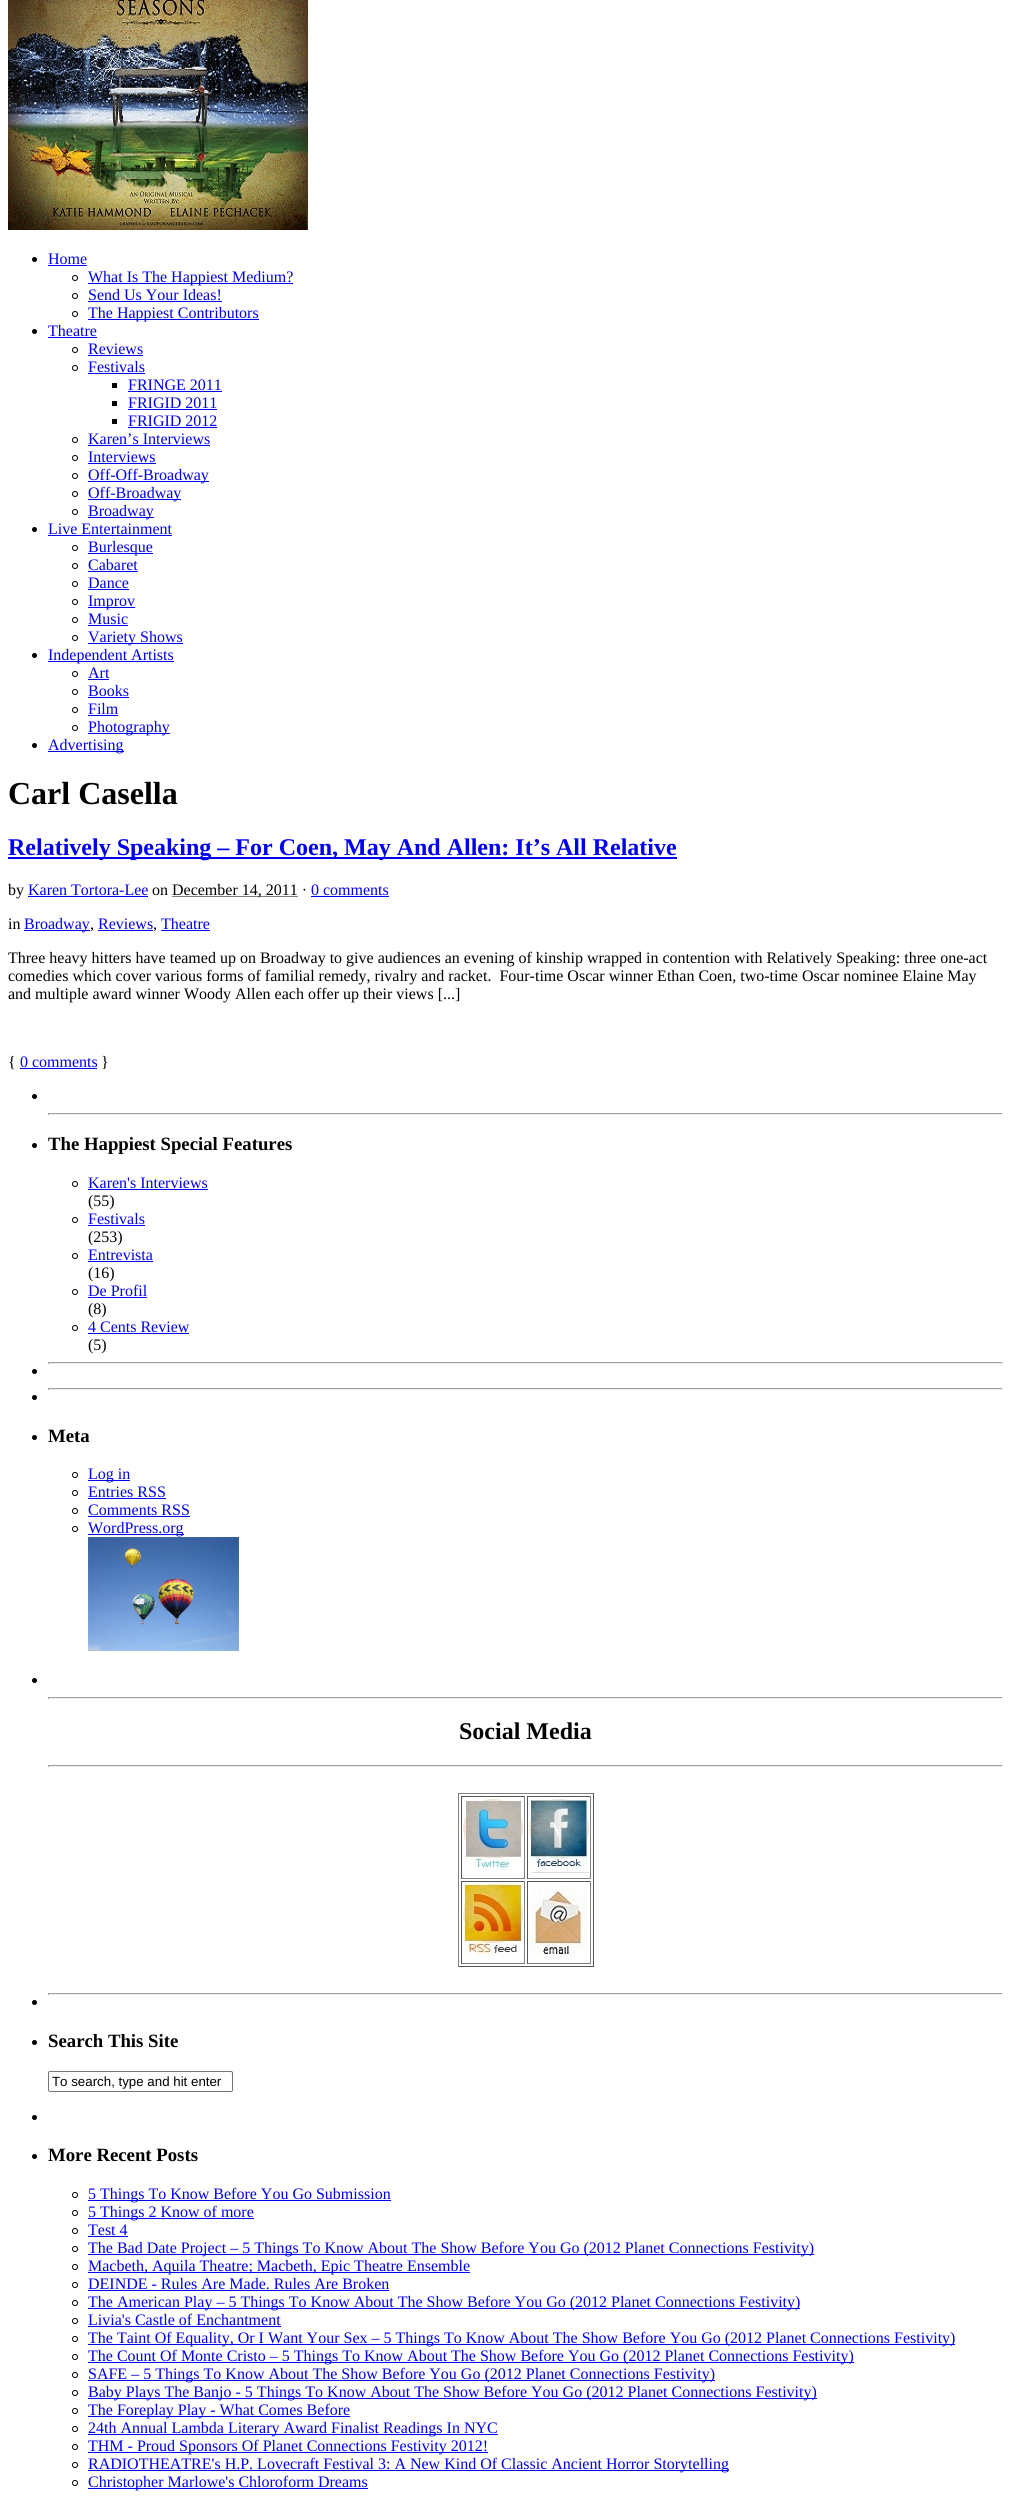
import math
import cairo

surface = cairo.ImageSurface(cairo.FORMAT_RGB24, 1011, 2515)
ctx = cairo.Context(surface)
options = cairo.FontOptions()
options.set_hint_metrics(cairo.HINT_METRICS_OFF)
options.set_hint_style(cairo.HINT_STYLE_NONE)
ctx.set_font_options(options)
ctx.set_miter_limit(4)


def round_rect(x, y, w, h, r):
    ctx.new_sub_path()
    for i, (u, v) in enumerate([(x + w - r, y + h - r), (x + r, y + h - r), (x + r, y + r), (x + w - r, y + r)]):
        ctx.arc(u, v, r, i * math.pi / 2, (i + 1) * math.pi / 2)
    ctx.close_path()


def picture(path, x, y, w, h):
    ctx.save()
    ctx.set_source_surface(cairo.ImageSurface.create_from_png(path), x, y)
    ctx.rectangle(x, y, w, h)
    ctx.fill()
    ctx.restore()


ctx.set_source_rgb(1, 1, 1)
ctx.paint()
picture("img1.png", 8, 0, 300, 230)
ctx.set_source_rgb(0, 0, 0)
ctx.arc(34.5, 259.5, 2.5, 0, 2 * math.pi)
ctx.fill()
ctx.select_font_face("Liberation Serif")
ctx.set_font_size(16)
ctx.set_source_rgb(0, 0, 0.933)
ctx.move_to(48, 264)
ctx.show_text("Home")
ctx.rectangle(48, 265, 39, 1)
ctx.fill()
ctx.arc(75, 278, 2.5, 0, 2 * math.pi)
ctx.set_source_rgb(0, 0, 0)
ctx.set_line_width(1)
ctx.stroke()
ctx.set_source_rgb(0, 0, 0.933)
ctx.rectangle(88, 283, 205, 1)
ctx.fill()
ctx.move_to(88, 282)
ctx.show_text("What Is The Happiest Medium?")
ctx.new_path()
ctx.arc(75, 296, 2.5, 0, 2 * math.pi)
ctx.set_source_rgb(0, 0, 0)
ctx.stroke()
ctx.set_source_rgb(0, 0, 0.933)
ctx.move_to(88, 300)
ctx.show_text("Send Us Your Ideas!")
ctx.rectangle(88, 301, 134, 1)
ctx.fill()
ctx.arc(75, 314, 2.5, 0, 2 * math.pi)
ctx.set_source_rgb(0, 0, 0)
ctx.stroke()
ctx.set_source_rgb(0, 0, 0.933)
ctx.rectangle(88, 319, 171, 1)
ctx.fill()
ctx.move_to(88, 318)
ctx.show_text("The Happiest Contributors")
ctx.set_source_rgb(0, 0, 0)
ctx.new_path()
ctx.arc(34.5, 331.5, 2.5, 0, 2 * math.pi)
ctx.fill()
ctx.set_source_rgb(0, 0, 0.933)
ctx.move_to(48, 336)
ctx.show_text("Theatre")
ctx.rectangle(48, 337, 49, 1)
ctx.fill()
ctx.arc(75, 350, 2.5, 0, 2 * math.pi)
ctx.set_source_rgb(0, 0, 0)
ctx.stroke()
ctx.set_source_rgb(0, 0, 0.933)
ctx.move_to(88, 354)
ctx.show_text("Reviews")
ctx.rectangle(88, 355, 55, 1)
ctx.fill()
ctx.arc(75, 368, 2.5, 0, 2 * math.pi)
ctx.set_source_rgb(0, 0, 0)
ctx.stroke()
ctx.set_source_rgb(0, 0, 0.933)
ctx.move_to(88, 372)
ctx.show_text("Festivals")
ctx.rectangle(88, 373, 57, 1)
ctx.fill()
ctx.set_source_rgb(0, 0, 0)
ctx.rectangle(112, 383, 5, 5)
ctx.fill()
ctx.set_source_rgb(0, 0, 0.933)
ctx.move_to(128, 390)
ctx.show_text("FRINGE 2011")
ctx.rectangle(128, 391, 94, 1)
ctx.fill()
ctx.set_source_rgb(0, 0, 0)
ctx.rectangle(112, 401, 5, 5)
ctx.fill()
ctx.set_source_rgb(0, 0, 0.933)
ctx.move_to(128, 408)
ctx.show_text("FRIGID 2011")
ctx.rectangle(128, 409, 89, 1)
ctx.fill()
ctx.set_source_rgb(0, 0, 0)
ctx.rectangle(112, 419, 5, 5)
ctx.fill()
ctx.set_source_rgb(0, 0, 0.933)
ctx.move_to(128, 426)
ctx.show_text("FRIGID 2012")
ctx.rectangle(128, 427, 89, 1)
ctx.fill()
ctx.arc(75, 440, 2.5, 0, 2 * math.pi)
ctx.set_source_rgb(0, 0, 0)
ctx.stroke()
ctx.set_source_rgb(0, 0, 0.933)
ctx.move_to(88, 444)
ctx.show_text("Karen’s Interviews")
ctx.rectangle(88, 445, 122, 1)
ctx.fill()
ctx.arc(75, 458, 2.5, 0, 2 * math.pi)
ctx.set_source_rgb(0, 0, 0)
ctx.stroke()
ctx.set_source_rgb(0, 0, 0.933)
ctx.move_to(88, 462)
ctx.show_text("Interviews")
ctx.rectangle(88, 463, 68, 1)
ctx.fill()
ctx.arc(75, 476, 2.5, 0, 2 * math.pi)
ctx.set_source_rgb(0, 0, 0)
ctx.stroke()
ctx.set_source_rgb(0, 0, 0.933)
ctx.rectangle(88, 481, 121, 1)
ctx.fill()
ctx.move_to(88, 480)
ctx.show_text("Off-Off-Broadway")
ctx.new_path()
ctx.arc(75, 494, 2.5, 0, 2 * math.pi)
ctx.set_source_rgb(0, 0, 0)
ctx.stroke()
ctx.set_source_rgb(0, 0, 0.933)
ctx.rectangle(88, 499, 93, 1)
ctx.fill()
ctx.move_to(88, 498)
ctx.show_text("Off-Broadway")
ctx.new_path()
ctx.arc(75, 512, 2.5, 0, 2 * math.pi)
ctx.set_source_rgb(0, 0, 0)
ctx.stroke()
ctx.set_source_rgb(0, 0, 0.933)
ctx.rectangle(88, 517, 66, 1)
ctx.fill()
ctx.move_to(88, 516)
ctx.show_text("Broadway")
ctx.set_source_rgb(0, 0, 0)
ctx.new_path()
ctx.arc(34.5, 529.5, 2.5, 0, 2 * math.pi)
ctx.fill()
ctx.set_source_rgb(0, 0, 0.933)
ctx.move_to(48, 534)
ctx.show_text("Live Entertainment")
ctx.rectangle(48, 535, 124, 1)
ctx.fill()
ctx.arc(75, 548, 2.5, 0, 2 * math.pi)
ctx.set_source_rgb(0, 0, 0)
ctx.stroke()
ctx.set_source_rgb(0, 0, 0.933)
ctx.rectangle(88, 553, 65, 1)
ctx.fill()
ctx.move_to(88, 552)
ctx.show_text("Burlesque")
ctx.new_path()
ctx.arc(75, 566, 2.5, 0, 2 * math.pi)
ctx.set_source_rgb(0, 0, 0)
ctx.stroke()
ctx.set_source_rgb(0, 0, 0.933)
ctx.move_to(88, 570)
ctx.show_text("Cabaret")
ctx.rectangle(88, 571, 50, 1)
ctx.fill()
ctx.arc(75, 584, 2.5, 0, 2 * math.pi)
ctx.set_source_rgb(0, 0, 0)
ctx.stroke()
ctx.set_source_rgb(0, 0, 0.933)
ctx.move_to(88, 588)
ctx.show_text("Dance")
ctx.rectangle(88, 589, 41, 1)
ctx.fill()
ctx.arc(75, 602, 2.5, 0, 2 * math.pi)
ctx.set_source_rgb(0, 0, 0)
ctx.stroke()
ctx.set_source_rgb(0, 0, 0.933)
ctx.rectangle(88, 607, 47, 1)
ctx.fill()
ctx.move_to(88, 606)
ctx.show_text("Improv")
ctx.new_path()
ctx.arc(75, 620, 2.5, 0, 2 * math.pi)
ctx.set_source_rgb(0, 0, 0)
ctx.stroke()
ctx.set_source_rgb(0, 0, 0.933)
ctx.move_to(88, 624)
ctx.show_text("Music")
ctx.rectangle(88, 625, 40, 1)
ctx.fill()
ctx.arc(75, 638, 2.5, 0, 2 * math.pi)
ctx.set_source_rgb(0, 0, 0)
ctx.stroke()
ctx.set_source_rgb(0, 0, 0.933)
ctx.rectangle(88, 643, 95, 1)
ctx.fill()
ctx.move_to(88, 642)
ctx.show_text("Variety Shows")
ctx.set_source_rgb(0, 0, 0)
ctx.new_path()
ctx.arc(34.5, 655.5, 2.5, 0, 2 * math.pi)
ctx.fill()
ctx.set_source_rgb(0, 0, 0.933)
ctx.rectangle(48, 661, 126, 1)
ctx.fill()
ctx.move_to(48, 660)
ctx.show_text("Independent Artists")
ctx.new_path()
ctx.arc(75, 674, 2.5, 0, 2 * math.pi)
ctx.set_source_rgb(0, 0, 0)
ctx.stroke()
ctx.set_source_rgb(0, 0, 0.933)
ctx.move_to(88, 678)
ctx.show_text("Art")
ctx.rectangle(88, 679, 21, 1)
ctx.fill()
ctx.arc(75, 692, 2.5, 0, 2 * math.pi)
ctx.set_source_rgb(0, 0, 0)
ctx.stroke()
ctx.set_source_rgb(0, 0, 0.933)
ctx.move_to(88, 696)
ctx.show_text("Books")
ctx.rectangle(88, 697, 41, 1)
ctx.fill()
ctx.arc(75, 710, 2.5, 0, 2 * math.pi)
ctx.set_source_rgb(0, 0, 0)
ctx.stroke()
ctx.set_source_rgb(0, 0, 0.933)
ctx.move_to(88, 714)
ctx.show_text("Film")
ctx.rectangle(88, 715, 30, 1)
ctx.fill()
ctx.arc(75, 728, 2.5, 0, 2 * math.pi)
ctx.set_source_rgb(0, 0, 0)
ctx.stroke()
ctx.set_source_rgb(0, 0, 0.933)
ctx.rectangle(88, 733, 82, 1)
ctx.fill()
ctx.move_to(88, 732)
ctx.show_text("Photography")
ctx.set_source_rgb(0, 0, 0)
ctx.new_path()
ctx.arc(34.5, 745.5, 2.5, 0, 2 * math.pi)
ctx.fill()
ctx.set_source_rgb(0, 0, 0.933)
ctx.rectangle(48, 751, 76, 1)
ctx.fill()
ctx.move_to(48, 750)
ctx.show_text("Advertising")
ctx.select_font_face("Liberation Serif", cairo.FONT_SLANT_NORMAL, cairo.FONT_WEIGHT_BOLD)
ctx.set_font_size(32)
ctx.set_source_rgb(0, 0, 0)
ctx.move_to(8, 804)
ctx.show_text("Carl Casella")
ctx.set_source_rgb(0, 0, 0.933)
ctx.rectangle(8, 857, 669, 2)
ctx.fill()
ctx.set_font_size(24)
ctx.move_to(8, 855)
ctx.show_text("Relatively Speaking – For Coen, May And Allen: It’s All Relative")
ctx.select_font_face("Liberation Serif")
ctx.set_font_size(16)
ctx.set_source_rgb(0, 0, 0)
ctx.move_to(8, 895)
ctx.show_text("by")
ctx.set_source_rgb(0, 0, 0.933)
ctx.move_to(28, 895)
ctx.show_text("Karen Tortora-Lee")
ctx.rectangle(28, 896, 120, 1)
ctx.fill()
ctx.set_source_rgb(0, 0, 0)
ctx.move_to(152, 895)
ctx.show_text("on")
ctx.new_path()
ctx.move_to(172.5, 896.5)
ctx.line_to(298, 896.5)
ctx.set_dash([1, 1])
ctx.stroke()
ctx.move_to(172, 895)
ctx.show_text("December 14, 2011 ·")
ctx.set_source_rgb(0, 0, 0.933)
ctx.move_to(311, 895)
ctx.show_text("0 comments")
ctx.rectangle(311, 896, 78, 1)
ctx.fill()
ctx.set_source_rgb(0, 0, 0)
ctx.move_to(8, 929)
ctx.show_text("in")
ctx.set_source_rgb(0, 0, 0.933)
ctx.rectangle(24, 930, 66, 1)
ctx.fill()
ctx.move_to(24, 929)
ctx.show_text("Broadway")
ctx.set_source_rgb(0, 0, 0)
ctx.move_to(90, 929)
ctx.show_text(",")
ctx.set_source_rgb(0, 0, 0.933)
ctx.move_to(98, 929)
ctx.show_text("Reviews")
ctx.set_source_rgb(0, 0, 0)
ctx.move_to(153, 929)
ctx.show_text(",")
ctx.set_source_rgb(0, 0, 0.933)
ctx.rectangle(98, 930, 55, 1)
ctx.fill()
ctx.rectangle(161, 930, 49, 1)
ctx.fill()
ctx.move_to(161, 929)
ctx.show_text("Theatre")
ctx.set_source_rgb(0, 0, 0)
ctx.move_to(8, 963)
ctx.show_text("Three heavy hitters have teamed up on Broadway to give audiences an evening of kinship wrapped in contention with Relatively Speaking: three one-act")
ctx.move_to(8, 981)
ctx.show_text("comedies which cover various forms of familial remedy, rivalry and racket.  Four-time Oscar winner Ethan Coen, two-time Oscar nominee Elaine May")
ctx.move_to(8, 999)
ctx.show_text("and multiple award winner Woody Allen each offer up their views [...]")
ctx.move_to(8, 1067)
ctx.show_text("{")
ctx.set_source_rgb(0, 0, 0.933)
ctx.move_to(20, 1067)
ctx.show_text("0 comments")
ctx.rectangle(20, 1068, 77, 1)
ctx.fill()
ctx.set_source_rgb(0, 0, 0)
ctx.move_to(101, 1067)
ctx.show_text("}")
ctx.new_path()
ctx.arc(34.5, 1096.5, 2.5, 0, 2 * math.pi)
ctx.fill()
ctx.set_source_rgb(0.624, 0.624, 0.624)
ctx.rectangle(48, 1113, 955, 1)
ctx.fill()
ctx.set_source_rgb(0.933, 0.933, 0.933)
ctx.rectangle(1002, 1113, 1, 2)
ctx.fill()
ctx.rectangle(48, 1114, 955, 1)
ctx.fill()
ctx.set_source_rgb(0.624, 0.624, 0.624)
ctx.rectangle(48, 1113, 1, 2)
ctx.fill()
ctx.set_source_rgb(0, 0, 0)
ctx.arc(34.5, 1145.5, 2.5, 0, 2 * math.pi)
ctx.fill()
ctx.select_font_face("Liberation Serif", cairo.FONT_SLANT_NORMAL, cairo.FONT_WEIGHT_BOLD)
ctx.set_font_size(18.75)
ctx.move_to(48, 1150)
ctx.show_text("The Happiest Special Features")
ctx.new_path()
ctx.arc(75, 1184, 2.5, 0, 2 * math.pi)
ctx.set_dash([])
ctx.stroke()
ctx.select_font_face("Liberation Serif")
ctx.set_font_size(16)
ctx.set_source_rgb(0, 0, 0.933)
ctx.move_to(88, 1188)
ctx.show_text("Karen's Interviews")
ctx.rectangle(88, 1189, 120, 1)
ctx.fill()
ctx.set_source_rgb(0, 0, 0)
ctx.move_to(88, 1206)
ctx.show_text("(55)")
ctx.new_path()
ctx.arc(75, 1220, 2.5, 0, 2 * math.pi)
ctx.stroke()
ctx.set_source_rgb(0, 0, 0.933)
ctx.move_to(88, 1224)
ctx.show_text("Festivals")
ctx.rectangle(88, 1225, 57, 1)
ctx.fill()
ctx.set_source_rgb(0, 0, 0)
ctx.move_to(88, 1242)
ctx.show_text("(253)")
ctx.new_path()
ctx.arc(75, 1256, 2.5, 0, 2 * math.pi)
ctx.stroke()
ctx.set_source_rgb(0, 0, 0.933)
ctx.move_to(88, 1260)
ctx.show_text("Entrevista")
ctx.rectangle(88, 1261, 65, 1)
ctx.fill()
ctx.set_source_rgb(0, 0, 0)
ctx.move_to(88, 1278)
ctx.show_text("(16)")
ctx.new_path()
ctx.arc(75, 1292, 2.5, 0, 2 * math.pi)
ctx.stroke()
ctx.set_source_rgb(0, 0, 0.933)
ctx.move_to(88, 1296)
ctx.show_text("De Profil")
ctx.rectangle(88, 1297, 59, 1)
ctx.fill()
ctx.set_source_rgb(0, 0, 0)
ctx.move_to(88, 1314)
ctx.show_text("(8)")
ctx.new_path()
ctx.arc(75, 1328, 2.5, 0, 2 * math.pi)
ctx.stroke()
ctx.set_source_rgb(0, 0, 0.933)
ctx.move_to(88, 1332)
ctx.show_text("4 Cents Review")
ctx.rectangle(88, 1333, 101, 1)
ctx.fill()
ctx.set_source_rgb(0, 0, 0)
ctx.move_to(88, 1350)
ctx.show_text("(5)")
ctx.set_source_rgb(0.624, 0.624, 0.624)
ctx.rectangle(48, 1362, 955, 1)
ctx.fill()
ctx.set_source_rgb(0.933, 0.933, 0.933)
ctx.rectangle(1002, 1362, 1, 2)
ctx.fill()
ctx.rectangle(48, 1363, 955, 1)
ctx.fill()
ctx.set_source_rgb(0.624, 0.624, 0.624)
ctx.rectangle(48, 1362, 1, 2)
ctx.fill()
ctx.set_source_rgb(0, 0, 0)
ctx.arc(34.5, 1371.5, 2.5, 0, 2 * math.pi)
ctx.fill()
ctx.set_source_rgb(0.624, 0.624, 0.624)
ctx.rectangle(48, 1388, 955, 1)
ctx.fill()
ctx.set_source_rgb(0.933, 0.933, 0.933)
ctx.rectangle(1002, 1388, 1, 2)
ctx.fill()
ctx.rectangle(48, 1389, 955, 1)
ctx.fill()
ctx.set_source_rgb(0.624, 0.624, 0.624)
ctx.rectangle(48, 1388, 1, 2)
ctx.fill()
ctx.set_source_rgb(0, 0, 0)
ctx.arc(34.5, 1397.5, 2.5, 0, 2 * math.pi)
ctx.fill()
ctx.arc(34.5, 1437.5, 2.5, 0, 2 * math.pi)
ctx.fill()
ctx.select_font_face("Liberation Serif", cairo.FONT_SLANT_NORMAL, cairo.FONT_WEIGHT_BOLD)
ctx.set_font_size(18.75)
ctx.move_to(48, 1442)
ctx.show_text("Meta")
ctx.new_path()
ctx.arc(75, 1475, 2.5, 0, 2 * math.pi)
ctx.stroke()
ctx.set_source_rgb(0, 0, 0.933)
ctx.rectangle(88, 1480, 42, 1)
ctx.fill()
ctx.select_font_face("Liberation Serif")
ctx.set_font_size(16)
ctx.move_to(88, 1479)
ctx.show_text("Log in")
ctx.new_path()
ctx.arc(75, 1493, 2.5, 0, 2 * math.pi)
ctx.set_source_rgb(0, 0, 0)
ctx.stroke()
ctx.set_source_rgb(0, 0, 0.933)
ctx.move_to(88, 1497)
ctx.show_text("Entries RSS")
ctx.rectangle(88, 1498, 78, 1)
ctx.fill()
ctx.arc(75, 1511, 2.5, 0, 2 * math.pi)
ctx.set_source_rgb(0, 0, 0)
ctx.stroke()
ctx.set_source_rgb(0, 0, 0.933)
ctx.move_to(88, 1515)
ctx.show_text("Comments RSS")
ctx.rectangle(88, 1516, 102, 1)
ctx.fill()
ctx.arc(75, 1529, 2.5, 0, 2 * math.pi)
ctx.set_source_rgb(0, 0, 0)
ctx.stroke()
ctx.set_source_rgb(0, 0, 0.933)
ctx.rectangle(88, 1534, 96, 1)
ctx.fill()
ctx.move_to(88, 1533)
ctx.show_text("WordPress.org")
picture("img2.png", 88, 1537, 151, 114)
ctx.set_source_rgb(0, 0, 0)
ctx.arc(34.5, 1680.5, 2.5, 0, 2 * math.pi)
ctx.fill()
ctx.set_source_rgb(0.624, 0.624, 0.624)
ctx.rectangle(48, 1697, 955, 1)
ctx.fill()
ctx.set_source_rgb(0.933, 0.933, 0.933)
ctx.rectangle(1002, 1697, 1, 2)
ctx.fill()
ctx.rectangle(48, 1698, 955, 1)
ctx.fill()
ctx.set_source_rgb(0.624, 0.624, 0.624)
ctx.rectangle(48, 1697, 1, 2)
ctx.fill()
ctx.select_font_face("Liberation Serif", cairo.FONT_SLANT_NORMAL, cairo.FONT_WEIGHT_BOLD)
ctx.set_font_size(24)
ctx.set_source_rgb(0, 0, 0)
ctx.move_to(459, 1739)
ctx.show_text("Social Media")
ctx.set_source_rgb(0.624, 0.624, 0.624)
ctx.rectangle(48, 1765, 955, 1)
ctx.fill()
ctx.set_source_rgb(0.933, 0.933, 0.933)
ctx.rectangle(1002, 1765, 1, 2)
ctx.fill()
ctx.rectangle(48, 1766, 955, 1)
ctx.fill()
ctx.set_source_rgb(0.624, 0.624, 0.624)
ctx.rectangle(48, 1765, 1, 2)
ctx.fill()
ctx.set_source_rgb(0.502, 0.502, 0.502)
ctx.rectangle(458, 1793, 136, 1)
ctx.fill()
ctx.set_source_rgb(0.333, 0.333, 0.333)
ctx.rectangle(593, 1793, 1, 174)
ctx.fill()
ctx.rectangle(458, 1966, 136, 1)
ctx.fill()
ctx.set_source_rgb(0.502, 0.502, 0.502)
ctx.rectangle(458, 1793, 1, 174)
ctx.fill()
ctx.set_source_rgb(0.333, 0.333, 0.333)
ctx.rectangle(461, 1796, 64, 1)
ctx.fill()
ctx.set_source_rgb(0.502, 0.502, 0.502)
ctx.rectangle(524, 1796, 1, 83)
ctx.fill()
ctx.rectangle(461, 1878, 64, 1)
ctx.fill()
ctx.set_source_rgb(0.333, 0.333, 0.333)
ctx.rectangle(461, 1796, 1, 83)
ctx.fill()
picture("img3.png", 463, 1798, 60, 75)
ctx.rectangle(527, 1796, 64, 1)
ctx.fill()
ctx.set_source_rgb(0.502, 0.502, 0.502)
ctx.rectangle(590, 1796, 1, 83)
ctx.fill()
ctx.rectangle(527, 1878, 64, 1)
ctx.fill()
ctx.set_source_rgb(0.333, 0.333, 0.333)
ctx.rectangle(527, 1796, 1, 83)
ctx.fill()
picture("img4.png", 529, 1798, 60, 75)
ctx.rectangle(461, 1881, 64, 1)
ctx.fill()
ctx.set_source_rgb(0.502, 0.502, 0.502)
ctx.rectangle(524, 1881, 1, 83)
ctx.fill()
ctx.rectangle(461, 1963, 64, 1)
ctx.fill()
ctx.set_source_rgb(0.333, 0.333, 0.333)
ctx.rectangle(461, 1881, 1, 83)
ctx.fill()
picture("img5.png", 463, 1883, 60, 75)
ctx.rectangle(527, 1881, 64, 1)
ctx.fill()
ctx.set_source_rgb(0.502, 0.502, 0.502)
ctx.rectangle(590, 1881, 1, 83)
ctx.fill()
ctx.rectangle(527, 1963, 64, 1)
ctx.fill()
ctx.set_source_rgb(0.333, 0.333, 0.333)
ctx.rectangle(527, 1881, 1, 83)
ctx.fill()
picture("img6.png", 529, 1883, 60, 75)
ctx.set_source_rgb(0.624, 0.624, 0.624)
ctx.rectangle(48, 1993, 955, 1)
ctx.fill()
ctx.set_source_rgb(0.933, 0.933, 0.933)
ctx.rectangle(1002, 1993, 1, 2)
ctx.fill()
ctx.rectangle(48, 1994, 955, 1)
ctx.fill()
ctx.set_source_rgb(0.624, 0.624, 0.624)
ctx.rectangle(48, 1993, 1, 2)
ctx.fill()
ctx.set_source_rgb(0, 0, 0)
ctx.arc(34.5, 2002.5, 2.5, 0, 2 * math.pi)
ctx.fill()
ctx.arc(34.5, 2042.5, 2.5, 0, 2 * math.pi)
ctx.fill()
ctx.set_font_size(18.75)
ctx.move_to(48, 2047)
ctx.show_text("Search This Site")
round_rect(48.5, 2071.5, 184, 20, 1.5)
ctx.set_source_rgb(0.463, 0.463, 0.463)
ctx.stroke()
ctx.select_font_face("Liberation Sans")
ctx.set_font_size(13.3)
ctx.set_source_rgb(0, 0, 0)
ctx.move_to(52, 2086)
ctx.show_text("To search, type and hit enter")
ctx.new_path()
ctx.arc(34.5, 2117.5, 2.5, 0, 2 * math.pi)
ctx.fill()
ctx.arc(34.5, 2156.5, 2.5, 0, 2 * math.pi)
ctx.fill()
ctx.select_font_face("Liberation Serif", cairo.FONT_SLANT_NORMAL, cairo.FONT_WEIGHT_BOLD)
ctx.set_font_size(18.75)
ctx.move_to(48, 2161)
ctx.show_text("More Recent Posts")
ctx.new_path()
ctx.arc(75, 2195, 2.5, 0, 2 * math.pi)
ctx.stroke()
ctx.set_source_rgb(0, 0, 0.933)
ctx.rectangle(88, 2200, 303, 1)
ctx.fill()
ctx.select_font_face("Liberation Serif")
ctx.set_font_size(16)
ctx.move_to(88, 2199)
ctx.show_text("5 Things To Know Before You Go Submission")
ctx.new_path()
ctx.arc(75, 2213, 2.5, 0, 2 * math.pi)
ctx.set_source_rgb(0, 0, 0)
ctx.stroke()
ctx.set_source_rgb(0, 0, 0.933)
ctx.rectangle(88, 2218, 166, 1)
ctx.fill()
ctx.move_to(88, 2217)
ctx.show_text("5 Things 2 Know of more")
ctx.new_path()
ctx.arc(75, 2231, 2.5, 0, 2 * math.pi)
ctx.set_source_rgb(0, 0, 0)
ctx.stroke()
ctx.set_source_rgb(0, 0, 0.933)
ctx.move_to(88, 2235)
ctx.show_text("Test 4")
ctx.rectangle(88, 2236, 40, 1)
ctx.fill()
ctx.arc(75, 2249, 2.5, 0, 2 * math.pi)
ctx.set_source_rgb(0, 0, 0)
ctx.stroke()
ctx.set_source_rgb(0, 0, 0.933)
ctx.rectangle(88, 2254, 726, 1)
ctx.fill()
ctx.move_to(88, 2253)
ctx.show_text("The Bad Date Project – 5 Things To Know About The Show Before You Go (2012 Planet Connections Festivity)")
ctx.new_path()
ctx.arc(75, 2267, 2.5, 0, 2 * math.pi)
ctx.set_source_rgb(0, 0, 0)
ctx.stroke()
ctx.set_source_rgb(0, 0, 0.933)
ctx.rectangle(88, 2272, 382, 1)
ctx.fill()
ctx.move_to(88, 2271)
ctx.show_text("Macbeth, Aquila Theatre; Macbeth, Epic Theatre Ensemble")
ctx.new_path()
ctx.arc(75, 2285, 2.5, 0, 2 * math.pi)
ctx.set_source_rgb(0, 0, 0)
ctx.stroke()
ctx.set_source_rgb(0, 0, 0.933)
ctx.move_to(88, 2289)
ctx.show_text("DEINDE - Rules Are Made. Rules Are Broken")
ctx.rectangle(88, 2290, 301, 1)
ctx.fill()
ctx.arc(75, 2303, 2.5, 0, 2 * math.pi)
ctx.set_source_rgb(0, 0, 0)
ctx.stroke()
ctx.set_source_rgb(0, 0, 0.933)
ctx.rectangle(88, 2308, 712, 1)
ctx.fill()
ctx.move_to(88, 2307)
ctx.show_text("The American Play – 5 Things To Know About The Show Before You Go (2012 Planet Connections Festivity)")
ctx.new_path()
ctx.arc(75, 2321, 2.5, 0, 2 * math.pi)
ctx.set_source_rgb(0, 0, 0)
ctx.stroke()
ctx.set_source_rgb(0, 0, 0.933)
ctx.move_to(88, 2325)
ctx.show_text("Livia's Castle of Enchantment")
ctx.rectangle(88, 2326, 193, 1)
ctx.fill()
ctx.arc(75, 2339, 2.5, 0, 2 * math.pi)
ctx.set_source_rgb(0, 0, 0)
ctx.stroke()
ctx.set_source_rgb(0, 0, 0.933)
ctx.rectangle(88, 2344, 867, 1)
ctx.fill()
ctx.move_to(88, 2343)
ctx.show_text("The Taint Of Equality, Or I Want Your Sex – 5 Things To Know About The Show Before You Go (2012 Planet Connections Festivity)")
ctx.new_path()
ctx.arc(75, 2357, 2.5, 0, 2 * math.pi)
ctx.set_source_rgb(0, 0, 0)
ctx.stroke()
ctx.set_source_rgb(0, 0, 0.933)
ctx.rectangle(88, 2362, 766, 1)
ctx.fill()
ctx.move_to(88, 2361)
ctx.show_text("The Count Of Monte Cristo – 5 Things To Know About The Show Before You Go (2012 Planet Connections Festivity)")
ctx.new_path()
ctx.arc(75, 2375, 2.5, 0, 2 * math.pi)
ctx.set_source_rgb(0, 0, 0)
ctx.stroke()
ctx.set_source_rgb(0, 0, 0.933)
ctx.rectangle(88, 2380, 627, 1)
ctx.fill()
ctx.move_to(88, 2379)
ctx.show_text("SAFE – 5 Things To Know About The Show Before You Go (2012 Planet Connections Festivity)")
ctx.new_path()
ctx.arc(75, 2393, 2.5, 0, 2 * math.pi)
ctx.set_source_rgb(0, 0, 0)
ctx.stroke()
ctx.set_source_rgb(0, 0, 0.933)
ctx.rectangle(88, 2398, 729, 1)
ctx.fill()
ctx.move_to(88, 2397)
ctx.show_text("Baby Plays The Banjo - 5 Things To Know About The Show Before You Go (2012 Planet Connections Festivity)")
ctx.new_path()
ctx.arc(75, 2411, 2.5, 0, 2 * math.pi)
ctx.set_source_rgb(0, 0, 0)
ctx.stroke()
ctx.set_source_rgb(0, 0, 0.933)
ctx.rectangle(88, 2416, 262, 1)
ctx.fill()
ctx.move_to(88, 2415)
ctx.show_text("The Foreplay Play - What Comes Before")
ctx.new_path()
ctx.arc(75, 2429, 2.5, 0, 2 * math.pi)
ctx.set_source_rgb(0, 0, 0)
ctx.stroke()
ctx.set_source_rgb(0, 0, 0.933)
ctx.rectangle(88, 2434, 410, 1)
ctx.fill()
ctx.move_to(88, 2433)
ctx.show_text("24th Annual Lambda Literary Award Finalist Readings In NYC")
ctx.new_path()
ctx.arc(75, 2447, 2.5, 0, 2 * math.pi)
ctx.set_source_rgb(0, 0, 0)
ctx.stroke()
ctx.set_source_rgb(0, 0, 0.933)
ctx.rectangle(88, 2452, 400, 1)
ctx.fill()
ctx.move_to(88, 2451)
ctx.show_text("THM - Proud Sponsors Of Planet Connections Festivity 2012!")
ctx.new_path()
ctx.arc(75, 2465, 2.5, 0, 2 * math.pi)
ctx.set_source_rgb(0, 0, 0)
ctx.stroke()
ctx.set_source_rgb(0, 0, 0.933)
ctx.rectangle(88, 2470, 641, 1)
ctx.fill()
ctx.move_to(88, 2469)
ctx.show_text("RADIOTHEATRE's H.P. Lovecraft Festival 3: A New Kind Of Classic Ancient Horror Storytelling")
ctx.new_path()
ctx.arc(75, 2483, 2.5, 0, 2 * math.pi)
ctx.set_source_rgb(0, 0, 0)
ctx.stroke()
ctx.set_source_rgb(0, 0, 0.933)
ctx.rectangle(88, 2488, 280, 1)
ctx.fill()
ctx.move_to(88, 2487)
ctx.show_text("Christopher Marlowe's Chloroform Dreams")
surface.write_to_png("page.png")
